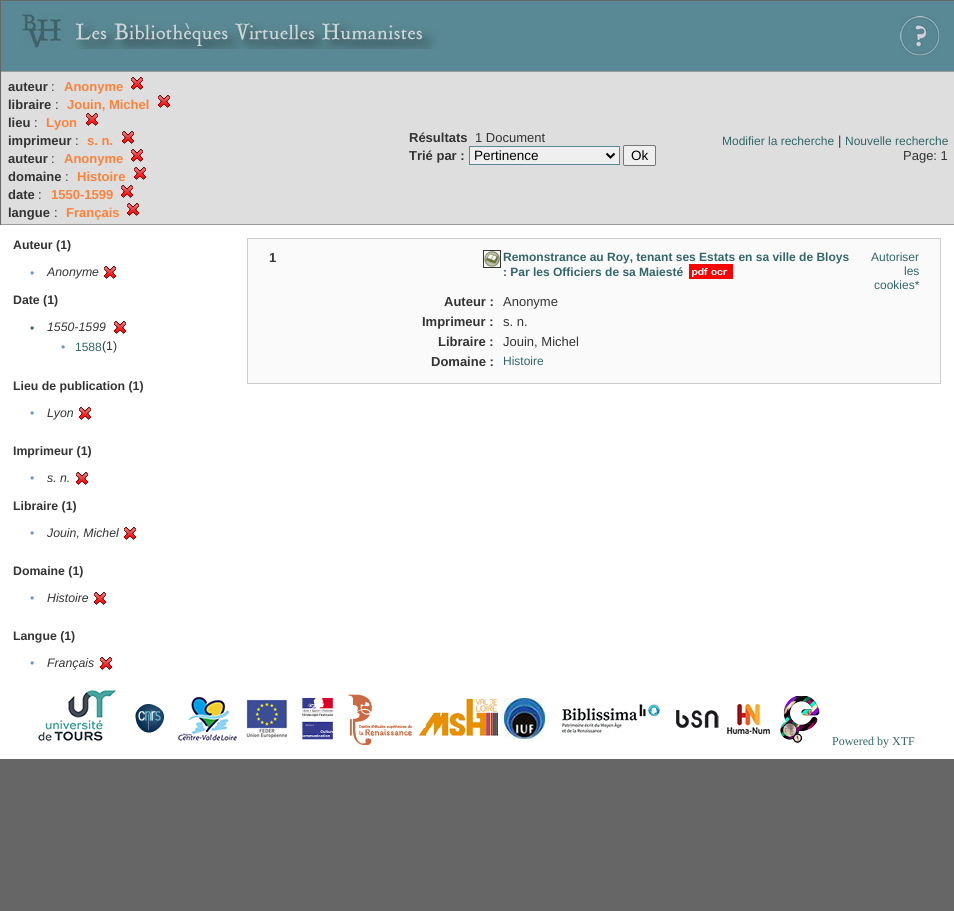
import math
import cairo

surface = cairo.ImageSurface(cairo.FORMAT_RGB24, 954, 911)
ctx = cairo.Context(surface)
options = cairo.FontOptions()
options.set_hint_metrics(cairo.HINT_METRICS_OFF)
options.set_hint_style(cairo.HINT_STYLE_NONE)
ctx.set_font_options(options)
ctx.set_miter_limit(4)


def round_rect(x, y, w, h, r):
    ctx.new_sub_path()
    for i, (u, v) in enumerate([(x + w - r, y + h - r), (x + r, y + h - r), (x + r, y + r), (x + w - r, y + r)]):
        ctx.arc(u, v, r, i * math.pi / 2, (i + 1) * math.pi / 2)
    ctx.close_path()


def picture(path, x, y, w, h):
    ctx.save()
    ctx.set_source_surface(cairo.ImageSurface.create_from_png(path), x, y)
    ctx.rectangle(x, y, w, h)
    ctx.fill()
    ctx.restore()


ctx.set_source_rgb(0.4, 0.4, 0.4)
ctx.paint()
ctx.set_source_rgb(0.349, 0.537, 0.584)
ctx.rectangle(1, 1, 953, 70)
ctx.fill()
picture("img1.png", 21, 12, 417, 37)
picture("img2.png", 900, 16, 40, 40)
ctx.set_source_rgb(0.871, 0.871, 0.875)
ctx.rectangle(1, 72, 953, 152)
ctx.fill()
ctx.set_source_rgb(0.6, 0.6, 0.6)
ctx.rectangle(0, 71, 954, 1)
ctx.fill()
ctx.rectangle(0, 224, 954, 1)
ctx.fill()
ctx.set_source_rgb(0.4, 0.4, 0.4)
ctx.rectangle(0, 71, 1, 154)
ctx.fill()
ctx.select_font_face("Liberation Sans", cairo.FONT_SLANT_NORMAL, cairo.FONT_WEIGHT_BOLD)
ctx.set_font_size(13)
ctx.set_source_rgb(0.2, 0.2, 0.2)
ctx.move_to(8, 91)
ctx.show_text("auteur")
ctx.select_font_face("Liberation Sans")
ctx.move_to(51, 91)
ctx.show_text(":")
ctx.select_font_face("Liberation Sans", cairo.FONT_SLANT_NORMAL, cairo.FONT_WEIGHT_BOLD)
ctx.set_source_rgb(0.992, 0.51, 0.224)
ctx.move_to(64, 91)
ctx.show_text("Anonyme")
picture("img3.png", 131, 77, 12, 13)
ctx.set_source_rgb(0.2, 0.2, 0.2)
ctx.move_to(8, 109)
ctx.show_text("libraire")
ctx.select_font_face("Liberation Sans")
ctx.move_to(55, 109)
ctx.show_text(":")
ctx.select_font_face("Liberation Sans", cairo.FONT_SLANT_NORMAL, cairo.FONT_WEIGHT_BOLD)
ctx.set_source_rgb(0.992, 0.51, 0.224)
ctx.move_to(67, 109)
ctx.show_text("Jouin, Michel")
picture("img3.png", 158, 95, 12, 13)
ctx.set_source_rgb(0.2, 0.2, 0.2)
ctx.move_to(8, 127)
ctx.show_text("lieu")
ctx.select_font_face("Liberation Sans")
ctx.move_to(34, 127)
ctx.show_text(":")
ctx.select_font_face("Liberation Sans", cairo.FONT_SLANT_NORMAL, cairo.FONT_WEIGHT_BOLD)
ctx.set_source_rgb(0.992, 0.51, 0.224)
ctx.move_to(46, 127)
ctx.show_text("Lyon")
picture("img3.png", 86, 113, 12, 13)
ctx.set_source_rgb(0.2, 0.2, 0.2)
ctx.move_to(8, 145)
ctx.show_text("imprimeur")
ctx.select_font_face("Liberation Sans")
ctx.move_to(75, 145)
ctx.show_text(":")
ctx.select_font_face("Liberation Sans", cairo.FONT_SLANT_NORMAL, cairo.FONT_WEIGHT_BOLD)
ctx.set_source_rgb(0.992, 0.51, 0.224)
ctx.move_to(87, 145)
ctx.show_text("s. n.")
picture("img3.png", 122, 131, 12, 13)
ctx.set_source_rgb(0.2, 0.2, 0.2)
ctx.move_to(8, 163)
ctx.show_text("auteur")
ctx.select_font_face("Liberation Sans")
ctx.move_to(51, 163)
ctx.show_text(":")
ctx.select_font_face("Liberation Sans", cairo.FONT_SLANT_NORMAL, cairo.FONT_WEIGHT_BOLD)
ctx.set_source_rgb(0.992, 0.51, 0.224)
ctx.move_to(64, 163)
ctx.show_text("Anonyme")
picture("img3.png", 131, 149, 12, 13)
ctx.set_source_rgb(0.2, 0.2, 0.2)
ctx.move_to(8, 181)
ctx.show_text("domaine")
ctx.select_font_face("Liberation Sans")
ctx.move_to(65, 181)
ctx.show_text(":")
ctx.select_font_face("Liberation Sans", cairo.FONT_SLANT_NORMAL, cairo.FONT_WEIGHT_BOLD)
ctx.set_source_rgb(0.992, 0.51, 0.224)
ctx.move_to(77, 181)
ctx.show_text("Histoire")
picture("img3.png", 134, 167, 12, 13)
ctx.set_source_rgb(0.2, 0.2, 0.2)
ctx.move_to(8, 199)
ctx.show_text("date")
ctx.select_font_face("Liberation Sans")
ctx.move_to(38, 199)
ctx.show_text(":")
ctx.select_font_face("Liberation Sans", cairo.FONT_SLANT_NORMAL, cairo.FONT_WEIGHT_BOLD)
ctx.set_source_rgb(0.992, 0.51, 0.224)
ctx.move_to(51, 199)
ctx.show_text("1550-1599")
picture("img3.png", 121, 185, 12, 13)
ctx.set_source_rgb(0.2, 0.2, 0.2)
ctx.move_to(8, 217)
ctx.show_text("langue")
ctx.select_font_face("Liberation Sans")
ctx.move_to(54, 217)
ctx.show_text(":")
ctx.select_font_face("Liberation Sans", cairo.FONT_SLANT_NORMAL, cairo.FONT_WEIGHT_BOLD)
ctx.set_source_rgb(0.992, 0.51, 0.224)
ctx.move_to(66, 217)
ctx.show_text("Français")
picture("img3.png", 127, 203, 12, 13)
ctx.set_source_rgb(0.2, 0.2, 0.2)
ctx.move_to(409, 142)
ctx.show_text("Résultats")
ctx.select_font_face("Liberation Sans")
ctx.move_to(475, 142)
ctx.show_text("1 Document")
ctx.select_font_face("Liberation Sans", cairo.FONT_SLANT_NORMAL, cairo.FONT_WEIGHT_BOLD)
ctx.move_to(409, 160)
ctx.show_text("Trié par :")
ctx.set_source_rgb(0.937, 0.937, 0.937)
ctx.rectangle(469.5, 146.5, 150, 18)
ctx.fill_preserve()
ctx.set_source_rgb(0.349, 0.537, 0.584)
ctx.set_line_width(1)
ctx.stroke()
ctx.new_path()
ctx.move_to(606.5, 153.5)
ctx.line_to(610.5, 157.5)
ctx.line_to(614.5, 153.5)
ctx.set_source_rgb(0, 0, 0)
ctx.set_line_width(2)
ctx.stroke()
ctx.select_font_face("Liberation Sans")
ctx.set_font_size(13.5)
ctx.move_to(474, 160)
ctx.show_text("Pertinence")
ctx.set_source_rgb(0.937, 0.937, 0.937)
round_rect(623.5, 145.5, 32, 20, 1.5)
ctx.fill_preserve()
ctx.set_source_rgb(0.463, 0.463, 0.463)
ctx.set_line_width(1)
ctx.stroke()
ctx.set_source_rgb(0, 0, 0)
ctx.move_to(631, 160)
ctx.show_text("Ok")
ctx.set_font_size(12)
ctx.set_source_rgb(0.2, 0.4, 0.4)
ctx.move_to(722, 145)
ctx.show_text("Modifier la recherche")
ctx.set_font_size(13)
ctx.set_source_rgb(0.2, 0.2, 0.2)
ctx.move_to(838, 145)
ctx.show_text("|")
ctx.set_font_size(12)
ctx.set_source_rgb(0.2, 0.4, 0.4)
ctx.move_to(845, 145)
ctx.show_text("Nouvelle recherche")
ctx.set_font_size(13)
ctx.set_source_rgb(0.2, 0.2, 0.2)
ctx.move_to(903, 160)
ctx.show_text("Page: 1")
ctx.set_source_rgb(1, 1, 1)
ctx.rectangle(0, 225, 954, 534)
ctx.fill()
ctx.select_font_face("Liberation Sans", cairo.FONT_SLANT_NORMAL, cairo.FONT_WEIGHT_BOLD)
ctx.set_font_size(12.3)
ctx.set_source_rgb(0.2, 0.2, 0.2)
ctx.move_to(13, 249)
ctx.show_text("Auteur (1)")
ctx.select_font_face("Liberation Sans")
ctx.set_source_rgb(0.4, 0.6, 0.8)
ctx.move_to(30, 277)
ctx.show_text("•")
ctx.select_font_face("Liberation Sans", cairo.FONT_SLANT_ITALIC)
ctx.set_source_rgb(0.2, 0.2, 0.2)
ctx.move_to(47, 276)
ctx.show_text("Anonyme")
picture("img4.png", 104, 266, 12, 13)
ctx.select_font_face("Liberation Sans", cairo.FONT_SLANT_NORMAL, cairo.FONT_WEIGHT_BOLD)
ctx.move_to(13, 304)
ctx.show_text("Date (1)")
ctx.select_font_face("Liberation Sans")
ctx.set_font_size(12)
ctx.set_source_rgb(0.2, 0.4, 0.4)
ctx.move_to(30, 332)
ctx.show_text("•")
ctx.select_font_face("Liberation Sans", cairo.FONT_SLANT_ITALIC)
ctx.set_font_size(12.3)
ctx.set_source_rgb(0.2, 0.2, 0.2)
ctx.move_to(47, 331)
ctx.show_text("1550-1599")
picture("img4.png", 114, 321, 12, 13)
ctx.select_font_face("Liberation Sans")
ctx.set_source_rgb(0.4, 0.6, 0.8)
ctx.move_to(61, 351)
ctx.show_text("•")
ctx.set_font_size(12)
ctx.set_source_rgb(0.2, 0.4, 0.4)
ctx.move_to(75, 351)
ctx.show_text("1588")
ctx.set_font_size(12.3)
ctx.set_source_rgb(0.2, 0.2, 0.2)
ctx.move_to(102, 350)
ctx.show_text("(1)")
ctx.select_font_face("Liberation Sans", cairo.FONT_SLANT_NORMAL, cairo.FONT_WEIGHT_BOLD)
ctx.move_to(13, 390)
ctx.show_text("Lieu de publication (1)")
ctx.select_font_face("Liberation Sans")
ctx.set_source_rgb(0.4, 0.6, 0.8)
ctx.move_to(30, 417)
ctx.show_text("•")
ctx.select_font_face("Liberation Sans", cairo.FONT_SLANT_ITALIC)
ctx.set_source_rgb(0.2, 0.2, 0.2)
ctx.move_to(47, 417)
ctx.show_text("Lyon")
picture("img4.png", 79, 407, 12, 13)
ctx.select_font_face("Liberation Sans", cairo.FONT_SLANT_NORMAL, cairo.FONT_WEIGHT_BOLD)
ctx.move_to(13, 455)
ctx.show_text("Imprimeur (1)")
ctx.select_font_face("Liberation Sans")
ctx.set_source_rgb(0.4, 0.6, 0.8)
ctx.move_to(30, 482)
ctx.show_text("•")
ctx.select_font_face("Liberation Sans", cairo.FONT_SLANT_ITALIC)
ctx.set_source_rgb(0.2, 0.2, 0.2)
ctx.move_to(47, 482)
ctx.show_text("s. n.")
picture("img4.png", 76, 472, 12, 13)
ctx.select_font_face("Liberation Sans", cairo.FONT_SLANT_NORMAL, cairo.FONT_WEIGHT_BOLD)
ctx.move_to(13, 510)
ctx.show_text("Libraire (1)")
ctx.select_font_face("Liberation Sans")
ctx.set_source_rgb(0.4, 0.6, 0.8)
ctx.move_to(30, 537)
ctx.show_text("•")
ctx.select_font_face("Liberation Sans", cairo.FONT_SLANT_ITALIC)
ctx.set_source_rgb(0.2, 0.2, 0.2)
ctx.move_to(47, 537)
ctx.show_text("Jouin, Michel")
picture("img4.png", 124, 527, 12, 13)
ctx.select_font_face("Liberation Sans", cairo.FONT_SLANT_NORMAL, cairo.FONT_WEIGHT_BOLD)
ctx.move_to(13, 575)
ctx.show_text("Domaine (1)")
ctx.select_font_face("Liberation Sans")
ctx.set_source_rgb(0.4, 0.6, 0.8)
ctx.move_to(30, 602)
ctx.show_text("•")
ctx.select_font_face("Liberation Sans", cairo.FONT_SLANT_ITALIC)
ctx.set_source_rgb(0.2, 0.2, 0.2)
ctx.move_to(47, 602)
ctx.show_text("Histoire")
picture("img4.png", 94, 592, 12, 13)
ctx.select_font_face("Liberation Sans", cairo.FONT_SLANT_NORMAL, cairo.FONT_WEIGHT_BOLD)
ctx.move_to(13, 640)
ctx.show_text("Langue (1)")
ctx.select_font_face("Liberation Sans")
ctx.set_source_rgb(0.4, 0.6, 0.8)
ctx.move_to(30, 667)
ctx.show_text("•")
ctx.select_font_face("Liberation Sans", cairo.FONT_SLANT_ITALIC)
ctx.set_source_rgb(0.2, 0.2, 0.2)
ctx.move_to(47, 667)
ctx.show_text("Français")
picture("img4.png", 100, 657, 12, 13)
ctx.set_source_rgb(0.98, 0.98, 0.984)
ctx.rectangle(247.5, 238.5, 693, 145)
ctx.fill_preserve()
ctx.set_source_rgb(0.8, 0.8, 0.8)
ctx.stroke()
ctx.select_font_face("Liberation Sans", cairo.FONT_SLANT_NORMAL, cairo.FONT_WEIGHT_BOLD)
ctx.set_font_size(13)
ctx.set_source_rgb(0.2, 0.2, 0.2)
ctx.move_to(269, 262)
ctx.show_text("1")
ctx.rectangle(483.5, 250.5, 17, 17)
ctx.stroke()
picture("img5.png", 484, 251, 16, 16)
ctx.set_font_size(12)
ctx.set_source_rgb(0.2, 0.4, 0.4)
ctx.move_to(503, 261)
ctx.show_text("Remonstrance au Roy, tenant ses Estats en sa ville de Bloys")
ctx.move_to(503, 276)
ctx.show_text(": Par les Officiers de sa Maiesté")
picture("img6.png", 689, 264, 44, 15)
ctx.select_font_face("Liberation Sans")
ctx.move_to(871, 261)
ctx.show_text("Autoriser")
ctx.move_to(904, 275)
ctx.show_text("les")
ctx.move_to(874, 289)
ctx.show_text("cookies*")
ctx.select_font_face("Liberation Sans", cairo.FONT_SLANT_NORMAL, cairo.FONT_WEIGHT_BOLD)
ctx.set_font_size(13)
ctx.set_source_rgb(0.2, 0.2, 0.2)
ctx.move_to(444, 306)
ctx.show_text("Auteur :")
ctx.select_font_face("Liberation Sans")
ctx.move_to(503, 306)
ctx.show_text("Anonyme")
ctx.select_font_face("Liberation Sans", cairo.FONT_SLANT_NORMAL, cairo.FONT_WEIGHT_BOLD)
ctx.move_to(422, 326)
ctx.show_text("Imprimeur :")
ctx.select_font_face("Liberation Sans")
ctx.move_to(503, 326)
ctx.show_text("s. n.")
ctx.select_font_face("Liberation Sans", cairo.FONT_SLANT_NORMAL, cairo.FONT_WEIGHT_BOLD)
ctx.move_to(438, 346)
ctx.show_text("Libraire :")
ctx.select_font_face("Liberation Sans")
ctx.move_to(503, 346)
ctx.show_text("Jouin, Michel")
ctx.select_font_face("Liberation Sans", cairo.FONT_SLANT_NORMAL, cairo.FONT_WEIGHT_BOLD)
ctx.move_to(431, 366)
ctx.show_text("Domaine :")
ctx.select_font_face("Liberation Sans")
ctx.set_font_size(12)
ctx.set_source_rgb(0.2, 0.4, 0.4)
ctx.move_to(503, 365)
ctx.show_text("Histoire")
picture("img7.png", 38, 689, 782, 56)
ctx.select_font_face("Liberation Serif")
ctx.move_to(832, 745)
ctx.show_text("Powered by XTF")
surface.write_to_png("page.png")
